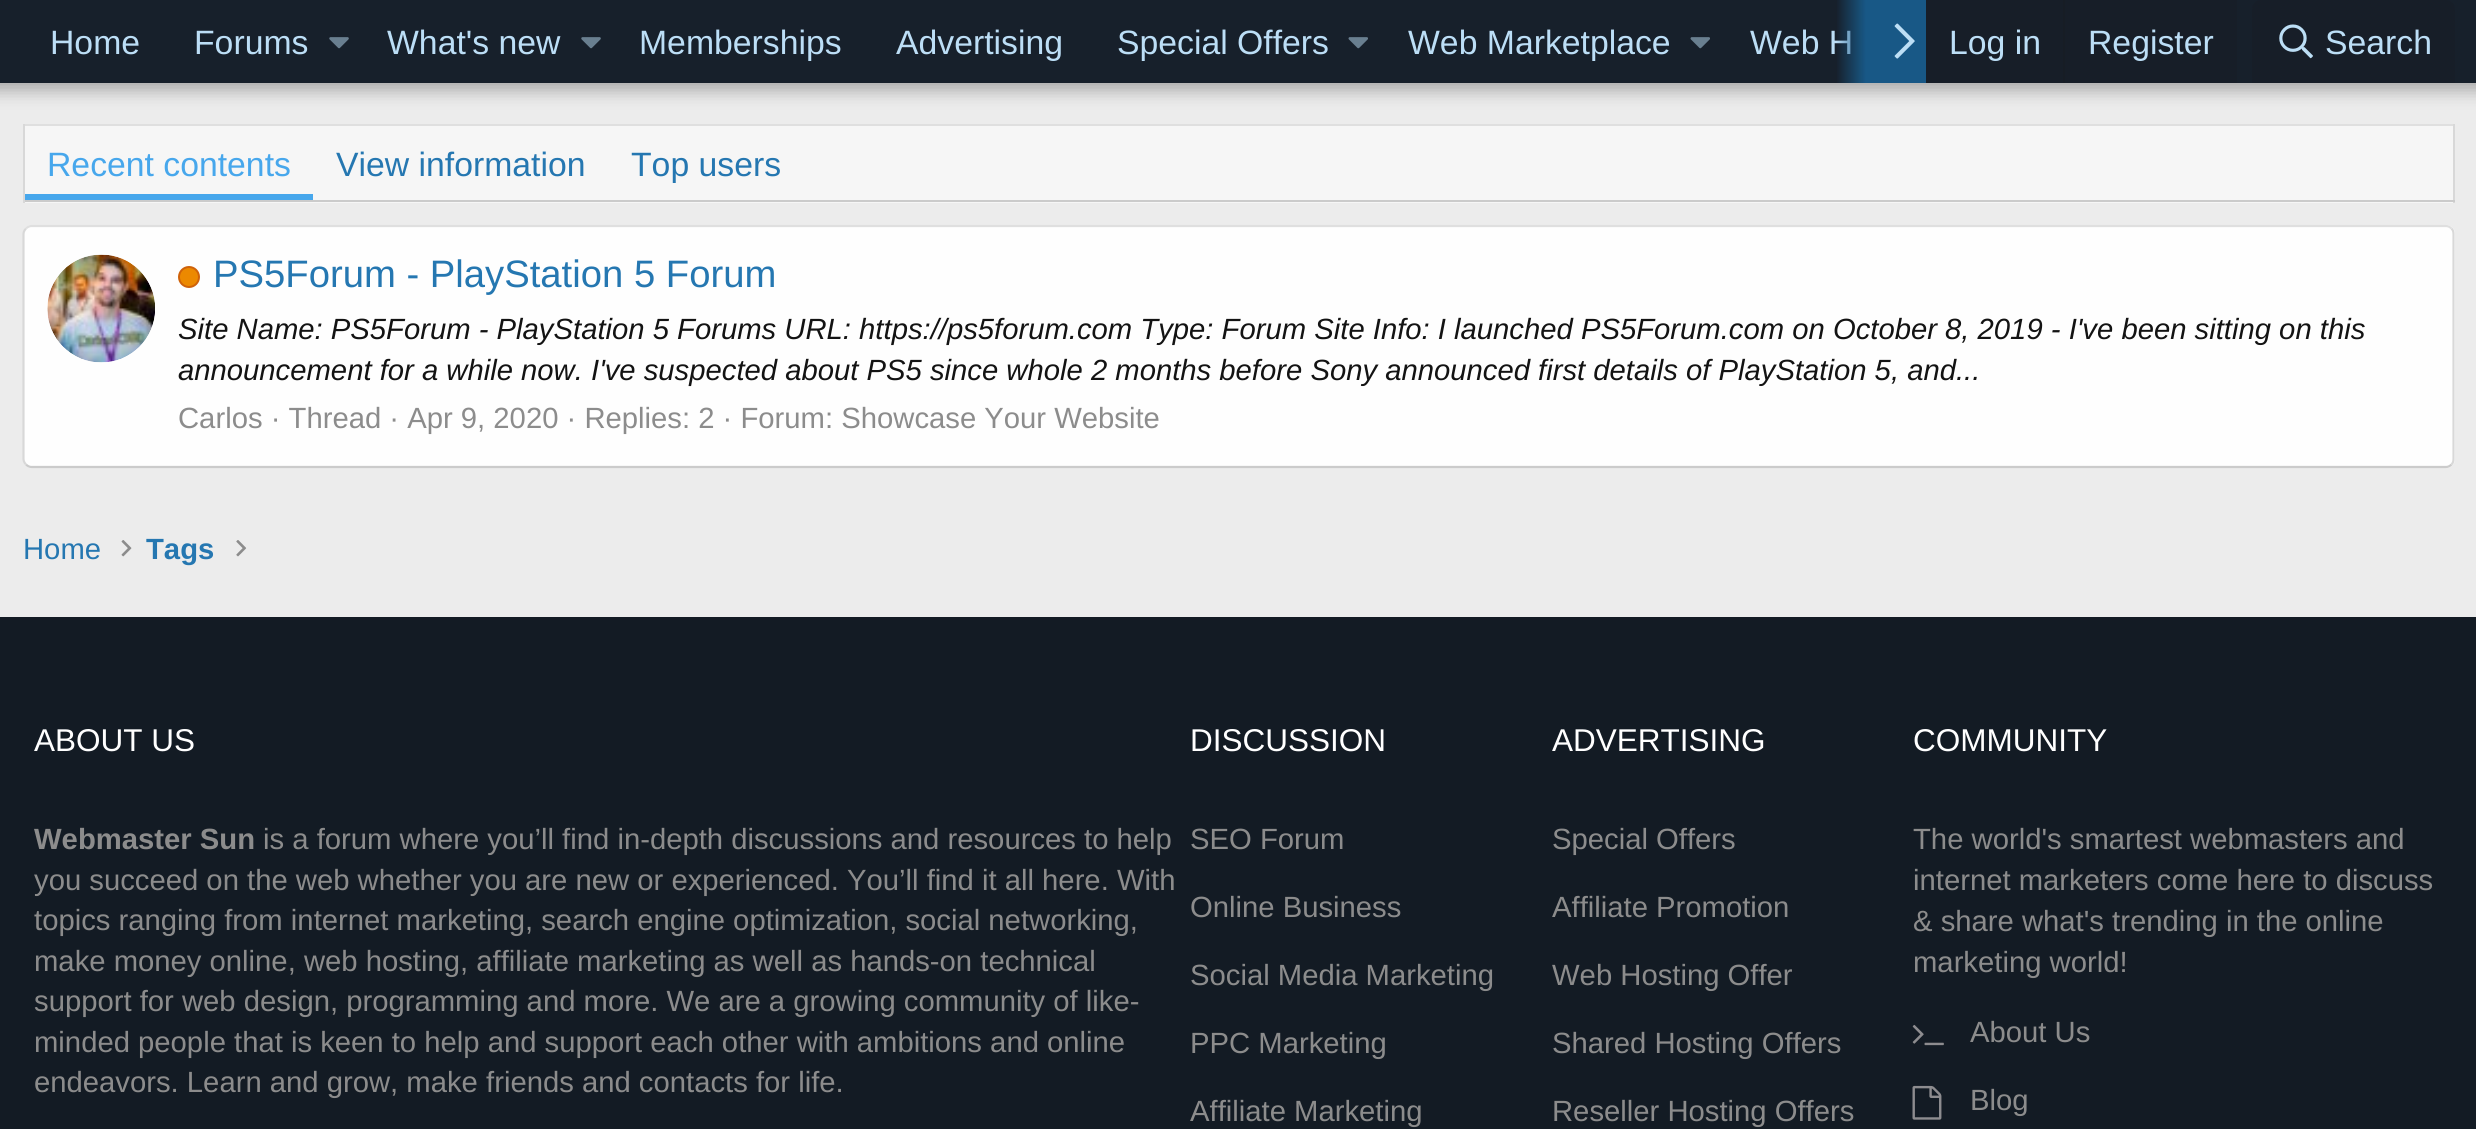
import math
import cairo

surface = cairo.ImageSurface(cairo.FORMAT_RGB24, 2476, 1129)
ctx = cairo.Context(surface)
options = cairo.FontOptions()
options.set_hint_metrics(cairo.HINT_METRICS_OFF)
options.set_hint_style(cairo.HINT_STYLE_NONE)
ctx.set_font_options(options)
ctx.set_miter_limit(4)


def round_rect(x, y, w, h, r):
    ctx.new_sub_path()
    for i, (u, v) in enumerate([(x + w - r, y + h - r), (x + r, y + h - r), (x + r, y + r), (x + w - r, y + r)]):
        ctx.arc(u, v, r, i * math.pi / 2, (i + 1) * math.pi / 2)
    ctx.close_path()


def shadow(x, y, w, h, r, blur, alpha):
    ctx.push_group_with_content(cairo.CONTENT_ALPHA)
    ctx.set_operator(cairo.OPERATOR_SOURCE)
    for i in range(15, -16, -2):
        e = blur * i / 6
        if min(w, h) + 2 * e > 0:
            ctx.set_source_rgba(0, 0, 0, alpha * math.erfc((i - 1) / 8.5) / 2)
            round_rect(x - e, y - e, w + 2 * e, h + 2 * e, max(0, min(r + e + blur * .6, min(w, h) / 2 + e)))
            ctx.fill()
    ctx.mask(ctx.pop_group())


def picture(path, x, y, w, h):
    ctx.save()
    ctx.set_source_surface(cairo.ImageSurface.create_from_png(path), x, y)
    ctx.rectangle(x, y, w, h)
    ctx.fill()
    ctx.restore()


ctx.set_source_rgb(0.925, 0.925, 0.925)
ctx.paint()
ctx.set_source_rgb(0, 0, 0)
shadow(-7, -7, 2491, 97, 0, 9, 0.3)
ctx.set_source_rgb(0.09, 0.125, 0.169)
ctx.rectangle(0, 0, 2476, 83)
ctx.fill()
ctx.select_font_face("Liberation Sans")
ctx.set_font_size(33.75)
ctx.set_source_rgb(0.737, 0.871, 0.961)
ctx.move_to(50, 54)
ctx.show_text("Home")
ctx.move_to(194, 54)
ctx.show_text("Forums")
picture("img1.png", 329, 37, 20, 12)
ctx.move_to(387, 54)
ctx.show_text("What's new")
picture("img1.png", 581, 37, 20, 12)
ctx.move_to(639, 54)
ctx.show_text("Memberships")
ctx.move_to(896, 54)
ctx.show_text("Advertising")
ctx.move_to(1117, 54)
ctx.show_text("Special Offers")
picture("img2.png", 1348, 37, 20, 12)
ctx.move_to(1408, 54)
ctx.show_text("Web Marketplace")
picture("img2.png", 1690, 37, 20, 12)
ctx.move_to(1750, 54)
ctx.show_text("Web H")
gradient = cairo.LinearGradient(1836, 42, 1926, 42)
gradient.add_color_stop_rgba(0, 0.094, 0.345, 0.525, 0)
gradient.add_color_stop_rgba(0.33, 0.094, 0.345, 0.525, 1)
ctx.set_source(gradient)
ctx.rectangle(1837, 0, 89, 83)
ctx.fill()
picture("img3.png", 1894, 23, 21, 36)
ctx.set_source_rgb(0.09, 0.118, 0.157)
ctx.rectangle(1926, 0, 311, 83)
ctx.fill()
ctx.set_source_rgb(0.737, 0.871, 0.961)
ctx.move_to(1949, 54)
ctx.show_text("Log in")
ctx.set_source_rgb(0.09, 0.114, 0.145)
ctx.rectangle(2063, 0, 2, 83)
ctx.fill()
ctx.set_source_rgb(0.737, 0.871, 0.961)
ctx.move_to(2088, 54)
ctx.show_text("Register")
ctx.set_source_rgb(0.09, 0.118, 0.157)
ctx.new_path()
ctx.move_to(2261, 0)
ctx.line_to(2446, 0)
ctx.curve_to(2451, 0, 2455, 4, 2455, 9)
ctx.line_to(2455, 83)
ctx.line_to(2252, 83)
ctx.line_to(2252, 9)
ctx.curve_to(2252, 4, 2256, 0, 2261, 0)
ctx.close_path()
ctx.fill()
picture("img4.png", 2279, 24, 34, 35)
ctx.set_source_rgb(0.737, 0.871, 0.961)
ctx.move_to(2325, 54)
ctx.show_text("Search")
ctx.set_source_rgb(0.961, 0.961, 0.961)
ctx.rectangle(25, 126, 2428, 77)
ctx.fill()
ctx.set_source_rgb(0.875, 0.875, 0.875)
ctx.rectangle(23, 124, 2432, 2)
ctx.fill()
ctx.set_source_rgb(0.847, 0.847, 0.847)
ctx.rectangle(2453, 124, 2, 79)
ctx.fill()
ctx.set_source_rgb(0.796, 0.796, 0.796)
ctx.rectangle(23, 200, 2432, 2)
ctx.fill()
ctx.set_source_rgb(0.847, 0.847, 0.847)
ctx.rectangle(23, 124, 2, 79)
ctx.fill()
ctx.set_source_rgb(0.278, 0.655, 0.922)
ctx.rectangle(25, 194, 288, 6)
ctx.fill()
ctx.move_to(47, 176)
ctx.show_text("Recent contents")
ctx.set_source_rgb(0.145, 0.467, 0.694)
ctx.move_to(336, 176)
ctx.show_text("View information")
ctx.move_to(631, 176)
ctx.show_text("Top users")
ctx.set_source_rgb(0.996, 0.996, 0.996)
round_rect(23, 225, 2432, 243, 9)
ctx.fill()
ctx.new_path()
ctx.move_to(26, 228.5)
ctx.curve_to(27.5, 227, 29.5, 226, 31.5, 226)
ctx.line_to(2446, 226)
ctx.curve_to(2448, 226, 2450, 227, 2451.5, 228.5)
ctx.set_source_rgb(0.875, 0.875, 0.875)
ctx.set_line_width(2.2)
ctx.stroke()
ctx.new_path()
ctx.move_to(2451.5, 228.5)
ctx.curve_to(2453, 230, 2453.5, 232, 2453.5, 234)
ctx.line_to(2453.5, 459)
ctx.curve_to(2453.5, 461, 2453, 463, 2451.5, 464.5)
ctx.set_source_rgb(0.847, 0.847, 0.847)
ctx.stroke()
ctx.new_path()
ctx.move_to(2451.5, 464.5)
ctx.curve_to(2450, 466, 2448, 467, 2446, 467)
ctx.line_to(31.5, 467)
ctx.curve_to(29.5, 467, 27.5, 466, 26, 464.5)
ctx.set_source_rgb(0.796, 0.796, 0.796)
ctx.stroke()
ctx.new_path()
ctx.move_to(26, 464.5)
ctx.curve_to(24.5, 463, 23.5, 461, 23.5, 459)
ctx.line_to(23.5, 234)
ctx.curve_to(23.5, 232, 24.5, 230, 26, 228.5)
ctx.set_source_rgb(0.847, 0.847, 0.847)
ctx.stroke()
picture("img5.png", 47, 254, 108, 109)
ctx.set_source_rgb(0.922, 0.537, 0)
ctx.arc(189, 277, 10, 0, 2 * math.pi)
ctx.fill_preserve()
ctx.set_source_rgb(0.812, 0.384, 0.039)
ctx.set_line_width(2)
ctx.stroke()
ctx.set_font_size(38.25)
ctx.set_source_rgb(0.145, 0.467, 0.694)
ctx.move_to(213, 287)
ctx.show_text("PS5Forum - PlayStation 5 Forum")
ctx.select_font_face("Liberation Sans", cairo.FONT_SLANT_ITALIC)
ctx.set_font_size(29.25)
ctx.set_source_rgb(0.078, 0.078, 0.078)
ctx.move_to(178, 339)
ctx.show_text("Site Name: PS5Forum - PlayStation 5 Forums URL: https://ps5forum.com Type: Forum Site Info: I launched PS5Forum.com on October 8, 2019 - I've been sitting on this")
ctx.move_to(178, 380)
ctx.show_text("announcement for a while now. I've suspected about PS5 since whole 2 months before Sony announced first details of PlayStation 5, and...")
ctx.select_font_face("Liberation Sans")
ctx.set_source_rgb(0.549, 0.549, 0.549)
ctx.move_to(178, 428)
ctx.show_text("Carlos · Thread · Apr 9, 2020 · Replies: 2 · Forum: Showcase Your Website")
ctx.set_source_rgb(0.145, 0.467, 0.694)
ctx.move_to(23, 559)
ctx.show_text("Home")
picture("img6.png", 121, 540, 11, 17)
ctx.select_font_face("Liberation Sans", cairo.FONT_SLANT_NORMAL, cairo.FONT_WEIGHT_BOLD)
ctx.move_to(146, 559)
ctx.show_text("Tags")
picture("img7.png", 236, 540, 11, 17)
ctx.set_source_rgb(0.075, 0.106, 0.141)
ctx.rectangle(0, 617, 2476, 512)
ctx.fill()
ctx.select_font_face("Liberation Sans")
ctx.set_font_size(31.5)
ctx.set_source_rgb(1, 1, 1)
ctx.move_to(34, 751)
ctx.show_text("ABOUT US")
ctx.select_font_face("Liberation Sans", cairo.FONT_SLANT_NORMAL, cairo.FONT_WEIGHT_BOLD)
ctx.set_font_size(29.25)
ctx.set_source_rgb(0.549, 0.549, 0.549)
ctx.move_to(34, 849)
ctx.show_text("Webmaster Sun")
ctx.select_font_face("Liberation Sans")
ctx.move_to(263, 849)
ctx.show_text("is a forum where you’ll find in-depth discussions and resources to help")
ctx.move_to(34, 890)
ctx.show_text("you succeed on the web whether you are new or experienced. You’ll find it all here. With")
ctx.move_to(34, 930)
ctx.show_text("topics ranging from internet marketing, search engine optimization, social networking,")
ctx.move_to(34, 971)
ctx.show_text("make money online, web hosting, affiliate marketing as well as hands-on technical")
ctx.move_to(34, 1011)
ctx.show_text("support for web design, programming and more. We are a growing community of like-")
ctx.move_to(34, 1052)
ctx.show_text("minded people that is keen to help and support each other with ambitions and online")
ctx.move_to(34, 1092)
ctx.show_text("endeavors. Learn and grow, make friends and contacts for life.")
ctx.set_font_size(31.5)
ctx.set_source_rgb(1, 1, 1)
ctx.move_to(1190, 751)
ctx.show_text("DISCUSSION")
ctx.set_font_size(29.25)
ctx.set_source_rgb(0.549, 0.549, 0.549)
ctx.move_to(1190, 849)
ctx.show_text("SEO Forum")
ctx.move_to(1190, 917)
ctx.show_text("Online Business")
ctx.move_to(1190, 985)
ctx.show_text("Social Media Marketing")
ctx.move_to(1190, 1053)
ctx.show_text("PPC Marketing")
ctx.move_to(1190, 1121)
ctx.show_text("Affiliate Marketing")
ctx.set_font_size(31.5)
ctx.set_source_rgb(1, 1, 1)
ctx.move_to(1552, 751)
ctx.show_text("ADVERTISING")
ctx.set_font_size(29.25)
ctx.set_source_rgb(0.549, 0.549, 0.549)
ctx.move_to(1552, 849)
ctx.show_text("Special Offers")
ctx.move_to(1552, 917)
ctx.show_text("Affiliate Promotion")
ctx.move_to(1552, 985)
ctx.show_text("Web Hosting Offer")
ctx.move_to(1552, 1053)
ctx.show_text("Shared Hosting Offers")
ctx.move_to(1552, 1121)
ctx.show_text("Reseller Hosting Offers")
ctx.set_font_size(31.5)
ctx.set_source_rgb(1, 1, 1)
ctx.move_to(1913, 751)
ctx.show_text("COMMUNITY")
ctx.set_font_size(29.25)
ctx.set_source_rgb(0.549, 0.549, 0.549)
ctx.move_to(1913, 849)
ctx.show_text("The world's smartest webmasters and")
ctx.move_to(1913, 890)
ctx.show_text("internet marketers come here to discuss")
ctx.move_to(1913, 931)
ctx.show_text("& share what's trending in the online")
ctx.move_to(1913, 972)
ctx.show_text("marketing world!")
picture("img8.png", 1912, 1024, 32, 22)
ctx.move_to(1970, 1042)
ctx.show_text("About Us")
picture("img9.png", 1912, 1085, 30, 35)
ctx.move_to(1970, 1110)
ctx.show_text("Blog")
surface.write_to_png("page.png")
